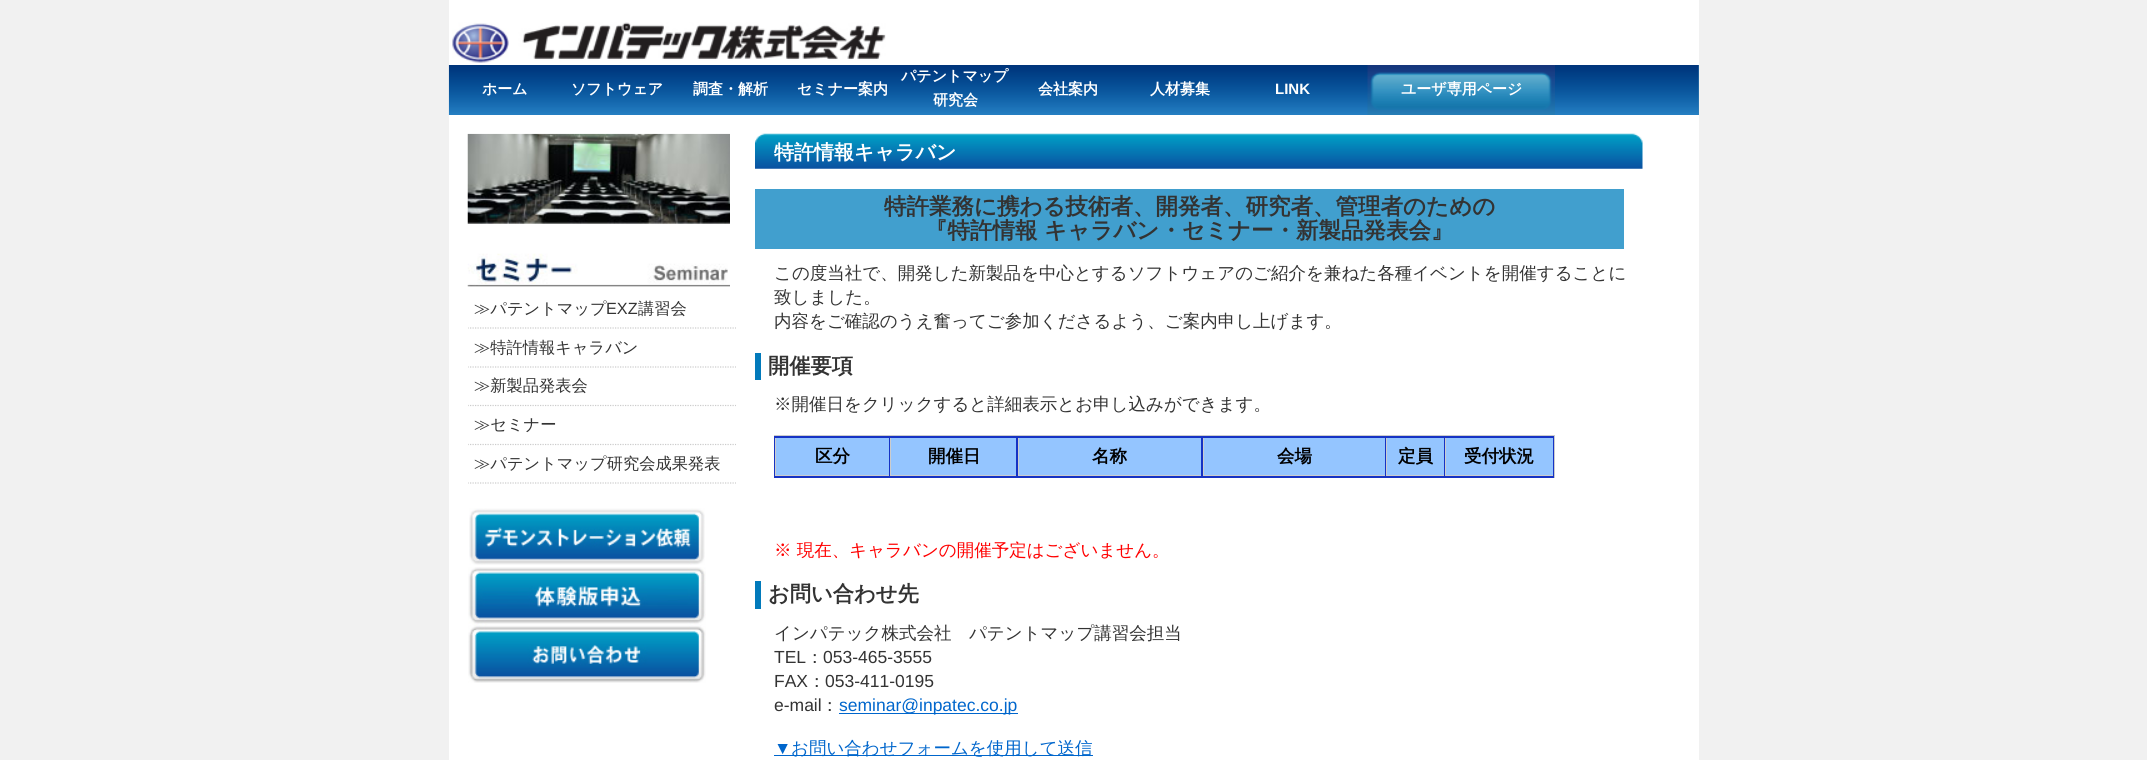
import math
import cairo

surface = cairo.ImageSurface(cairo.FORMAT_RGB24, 2147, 760)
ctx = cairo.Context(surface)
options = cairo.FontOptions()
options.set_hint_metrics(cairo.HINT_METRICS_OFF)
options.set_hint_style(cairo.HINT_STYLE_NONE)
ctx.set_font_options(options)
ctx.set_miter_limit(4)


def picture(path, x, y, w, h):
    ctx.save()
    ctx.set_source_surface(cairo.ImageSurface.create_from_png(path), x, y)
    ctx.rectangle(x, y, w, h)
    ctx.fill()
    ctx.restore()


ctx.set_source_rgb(0.945, 0.945, 0.945)
ctx.paint()
ctx.set_source_rgb(1, 1, 1)
ctx.rectangle(449, 0, 1250, 760)
ctx.fill()
picture("img1.png", 452, 22, 434, 41)
ctx.set_source_rgb(0.239, 0.514, 0.702)
ctx.rectangle(1698, 65, 1, 50)
ctx.fill()
picture("img2.png", 448, 65, 1251, 50)
ctx.select_font_face("WenQuanYi Zen Hei", cairo.FONT_SLANT_NORMAL, cairo.FONT_WEIGHT_BOLD)
ctx.set_font_size(15)
ctx.set_source_rgb(1, 1, 1)
ctx.move_to(482, 94)
ctx.show_text("ホーム")
ctx.move_to(571, 94)
ctx.show_text("ソフトウェア")
ctx.move_to(693, 94)
ctx.show_text("調査・解析")
ctx.move_to(797, 94)
ctx.show_text("セミナー案内")
ctx.move_to(901, 81)
ctx.show_text("パテントマップ")
ctx.move_to(933, 105)
ctx.show_text("研究会")
ctx.move_to(1038, 94)
ctx.show_text("会社案内")
ctx.move_to(1150, 94)
ctx.show_text("人材募集")
ctx.select_font_face("Liberation Sans", cairo.FONT_SLANT_NORMAL, cairo.FONT_WEIGHT_BOLD)
ctx.move_to(1275, 94)
ctx.show_text("LINK")
picture("img3.png", 1367, 65, 188, 50)
ctx.select_font_face("WenQuanYi Zen Hei", cairo.FONT_SLANT_NORMAL, cairo.FONT_WEIGHT_BOLD)
ctx.move_to(1401, 94)
ctx.show_text("ユーザ専用ページ")
picture("img4.png", 467, 133, 263, 154)
ctx.save()
ctx.rectangle(468, 134, 268, 550)
ctx.clip()
ctx.new_path()
ctx.move_to(467.5, 328)
ctx.line_to(739, 328)
ctx.set_source_rgb(0.8, 0.8, 0.8)
ctx.set_line_width(1.2)
ctx.set_dash([1.25, 1.25])
ctx.stroke()
ctx.restore()
ctx.select_font_face("WenQuanYi Zen Hei Medium")
ctx.set_font_size(16.25)
ctx.set_source_rgb(0.2, 0.2, 0.2)
ctx.move_to(474, 314)
ctx.show_text("≫パテントマップ")
ctx.select_font_face("Liberation Sans")
ctx.move_to(606, 314)
ctx.show_text("EXZ")
ctx.select_font_face("WenQuanYi Zen Hei Medium")
ctx.move_to(638, 314)
ctx.show_text("講習会")
ctx.save()
ctx.rectangle(468, 134, 268, 550)
ctx.clip()
ctx.new_path()
ctx.move_to(467.5, 367)
ctx.line_to(739, 367)
ctx.set_source_rgb(0.8, 0.8, 0.8)
ctx.set_line_width(1.2)
ctx.set_dash([1.25, 1.25])
ctx.stroke()
ctx.restore()
ctx.move_to(474, 353)
ctx.show_text("≫特許情報キャラバン")
ctx.save()
ctx.rectangle(468, 134, 268, 550)
ctx.clip()
ctx.new_path()
ctx.move_to(467.5, 405.5)
ctx.line_to(739, 405.5)
ctx.set_source_rgb(0.8, 0.8, 0.8)
ctx.set_line_width(1.2)
ctx.set_dash([1.25, 1.25])
ctx.stroke()
ctx.restore()
ctx.move_to(474, 391)
ctx.show_text("≫新製品発表会")
ctx.save()
ctx.rectangle(468, 134, 268, 550)
ctx.clip()
ctx.new_path()
ctx.move_to(467.5, 444.5)
ctx.line_to(739, 444.5)
ctx.set_source_rgb(0.8, 0.8, 0.8)
ctx.set_line_width(1.2)
ctx.set_dash([1.25, 1.25])
ctx.stroke()
ctx.restore()
ctx.move_to(474, 430)
ctx.show_text("≫セミナー")
ctx.save()
ctx.rectangle(468, 134, 268, 550)
ctx.clip()
ctx.new_path()
ctx.move_to(467.5, 483)
ctx.line_to(739, 483)
ctx.set_source_rgb(0.8, 0.8, 0.8)
ctx.set_line_width(1.2)
ctx.set_dash([1.25, 1.25])
ctx.stroke()
ctx.restore()
ctx.move_to(474, 469)
ctx.show_text("≫パテントマップ研究会成果発表")
picture("img5.png", 469, 508, 236, 57)
picture("img6.png", 468, 567, 238, 58)
picture("img7.png", 468, 625, 238, 58)
picture("img8.png", 755, 133, 888, 36)
ctx.select_font_face("WenQuanYi Zen Hei", cairo.FONT_SLANT_NORMAL, cairo.FONT_WEIGHT_BOLD)
ctx.set_font_size(20)
ctx.set_source_rgb(1, 1, 1)
ctx.move_to(774, 159)
ctx.show_text("特許情報キャラバン")
ctx.set_source_rgb(0.255, 0.624, 0.808)
ctx.rectangle(755, 189, 869, 60)
ctx.fill()
ctx.set_font_size(22.5)
ctx.set_source_rgb(0.2, 0.2, 0.2)
ctx.move_to(884, 214)
ctx.show_text("特許業務に携わる技術者、開発者、研究者、管理者のための")
ctx.move_to(925, 238)
ctx.show_text("『特許情報 キャラバン・セミナー・新製品発表会』")
ctx.select_font_face("WenQuanYi Zen Hei Medium")
ctx.set_font_size(17.5)
ctx.move_to(774, 279)
ctx.show_text("この度当社で、開発した新製品を中心とするソフトウェアのご紹介を兼ねた各種イベントを開催することに")
ctx.move_to(774, 303)
ctx.show_text("致しました。")
ctx.move_to(774, 327)
ctx.show_text("内容をご確認のうえ奮ってご参加くださるよう、ご案内申し上げます。")
ctx.set_source_rgb(0.008, 0.478, 0.733)
ctx.rectangle(755, 353, 6, 27)
ctx.fill()
ctx.select_font_face("WenQuanYi Zen Hei", cairo.FONT_SLANT_NORMAL, cairo.FONT_WEIGHT_BOLD)
ctx.set_font_size(21.25)
ctx.set_source_rgb(0.2, 0.2, 0.2)
ctx.move_to(768, 373)
ctx.show_text("開催要項")
ctx.select_font_face("WenQuanYi Zen Hei Medium")
ctx.set_font_size(17.5)
ctx.move_to(774, 410)
ctx.show_text("※開催日をクリックすると詳細表示とお申し込みができます。")
ctx.set_source_rgb(0.086, 0.2, 0.769)
ctx.rectangle(774, 436, 780, 42)
ctx.fill()
ctx.set_source_rgb(0.8, 0.8, 0.8)
ctx.rectangle(774, 435, 781, 1)
ctx.fill()
ctx.rectangle(1554, 435, 1, 43)
ctx.fill()
ctx.set_source_rgb(0.58, 0.773, 1)
ctx.rectangle(776, 438, 113, 37)
ctx.fill()
ctx.set_source_rgb(0.8, 0.8, 0.8)
ctx.rectangle(775, 475, 114, 1)
ctx.fill()
ctx.rectangle(775, 438, 1, 38)
ctx.fill()
ctx.select_font_face("WenQuanYi Zen Hei", cairo.FONT_SLANT_NORMAL, cairo.FONT_WEIGHT_BOLD)
ctx.set_source_rgb(0, 0, 0)
ctx.move_to(815, 462)
ctx.show_text("区分")
ctx.set_source_rgb(0.58, 0.773, 1)
ctx.rectangle(891, 438, 125, 37)
ctx.fill()
ctx.set_source_rgb(0.8, 0.8, 0.8)
ctx.rectangle(890, 475, 126, 1)
ctx.fill()
ctx.rectangle(890, 438, 1, 38)
ctx.fill()
ctx.set_source_rgb(0, 0, 0)
ctx.move_to(928, 462)
ctx.show_text("開催日")
ctx.set_source_rgb(0.58, 0.773, 1)
ctx.rectangle(1019, 438, 182, 37)
ctx.fill()
ctx.set_source_rgb(0.8, 0.8, 0.8)
ctx.rectangle(1018, 475, 183, 1)
ctx.fill()
ctx.rectangle(1018, 438, 1, 38)
ctx.fill()
ctx.set_source_rgb(0, 0, 0)
ctx.move_to(1092, 462)
ctx.show_text("名称")
ctx.set_source_rgb(0.58, 0.773, 1)
ctx.rectangle(1204, 438, 181, 37)
ctx.fill()
ctx.set_source_rgb(0.8, 0.8, 0.8)
ctx.rectangle(1203, 475, 182, 1)
ctx.fill()
ctx.rectangle(1203, 438, 1, 38)
ctx.fill()
ctx.set_source_rgb(0, 0, 0)
ctx.move_to(1277, 462)
ctx.show_text("会場")
ctx.set_source_rgb(0.58, 0.773, 1)
ctx.rectangle(1387, 438, 57, 37)
ctx.fill()
ctx.set_source_rgb(0.8, 0.8, 0.8)
ctx.rectangle(1386, 475, 58, 1)
ctx.fill()
ctx.rectangle(1386, 438, 1, 38)
ctx.fill()
ctx.set_source_rgb(0, 0, 0)
ctx.move_to(1398, 462)
ctx.show_text("定員")
ctx.set_source_rgb(0.58, 0.773, 1)
ctx.rectangle(1446, 438, 107, 37)
ctx.fill()
ctx.set_source_rgb(0.8, 0.8, 0.8)
ctx.rectangle(1445, 475, 108, 1)
ctx.fill()
ctx.rectangle(1445, 438, 1, 38)
ctx.fill()
ctx.set_source_rgb(0, 0, 0)
ctx.move_to(1464, 462)
ctx.show_text("受付状況")
ctx.select_font_face("WenQuanYi Zen Hei Medium")
ctx.set_source_rgb(1, 0, 0)
ctx.move_to(774, 556)
ctx.show_text("※ 現在、キャラバンの開催予定はございません。")
ctx.set_source_rgb(0.008, 0.478, 0.733)
ctx.rectangle(755, 581, 6, 28)
ctx.fill()
ctx.select_font_face("WenQuanYi Zen Hei", cairo.FONT_SLANT_NORMAL, cairo.FONT_WEIGHT_BOLD)
ctx.set_font_size(21.25)
ctx.set_source_rgb(0.2, 0.2, 0.2)
ctx.move_to(768, 601)
ctx.show_text("お問い合わせ先")
ctx.select_font_face("WenQuanYi Zen Hei Medium")
ctx.set_font_size(17.5)
ctx.move_to(774, 639)
ctx.show_text("インパテック株式会社　パテントマップ講習会担当")
ctx.select_font_face("Liberation Sans")
ctx.move_to(774, 663)
ctx.show_text("TEL")
ctx.select_font_face("WenQuanYi Zen Hei Medium")
ctx.move_to(806, 663)
ctx.show_text("：")
ctx.select_font_face("Liberation Sans")
ctx.move_to(823, 663)
ctx.show_text("053-465-3555")
ctx.move_to(774, 687)
ctx.show_text("FAX")
ctx.select_font_face("WenQuanYi Zen Hei Medium")
ctx.move_to(808, 687)
ctx.show_text("：")
ctx.select_font_face("Liberation Sans")
ctx.move_to(825, 687)
ctx.show_text("053-411-0195")
ctx.move_to(774, 711)
ctx.show_text("e-mail")
ctx.select_font_face("WenQuanYi Zen Hei Medium")
ctx.move_to(821, 711)
ctx.show_text("：")
ctx.set_source_rgb(0, 0.4, 0.8)
ctx.rectangle(839, 713, 179, 1)
ctx.fill()
ctx.select_font_face("Liberation Sans")
ctx.move_to(839, 711)
ctx.show_text("seminar@inpatec.co.jp")
ctx.move_to(774, 754)
ctx.show_text("▼")
ctx.rectangle(774, 755, 319, 1)
ctx.fill()
ctx.select_font_face("WenQuanYi Zen Hei Medium")
ctx.move_to(791, 754)
ctx.show_text("お問い合わせフォームを使用して送信")
surface.write_to_png("page.png")
